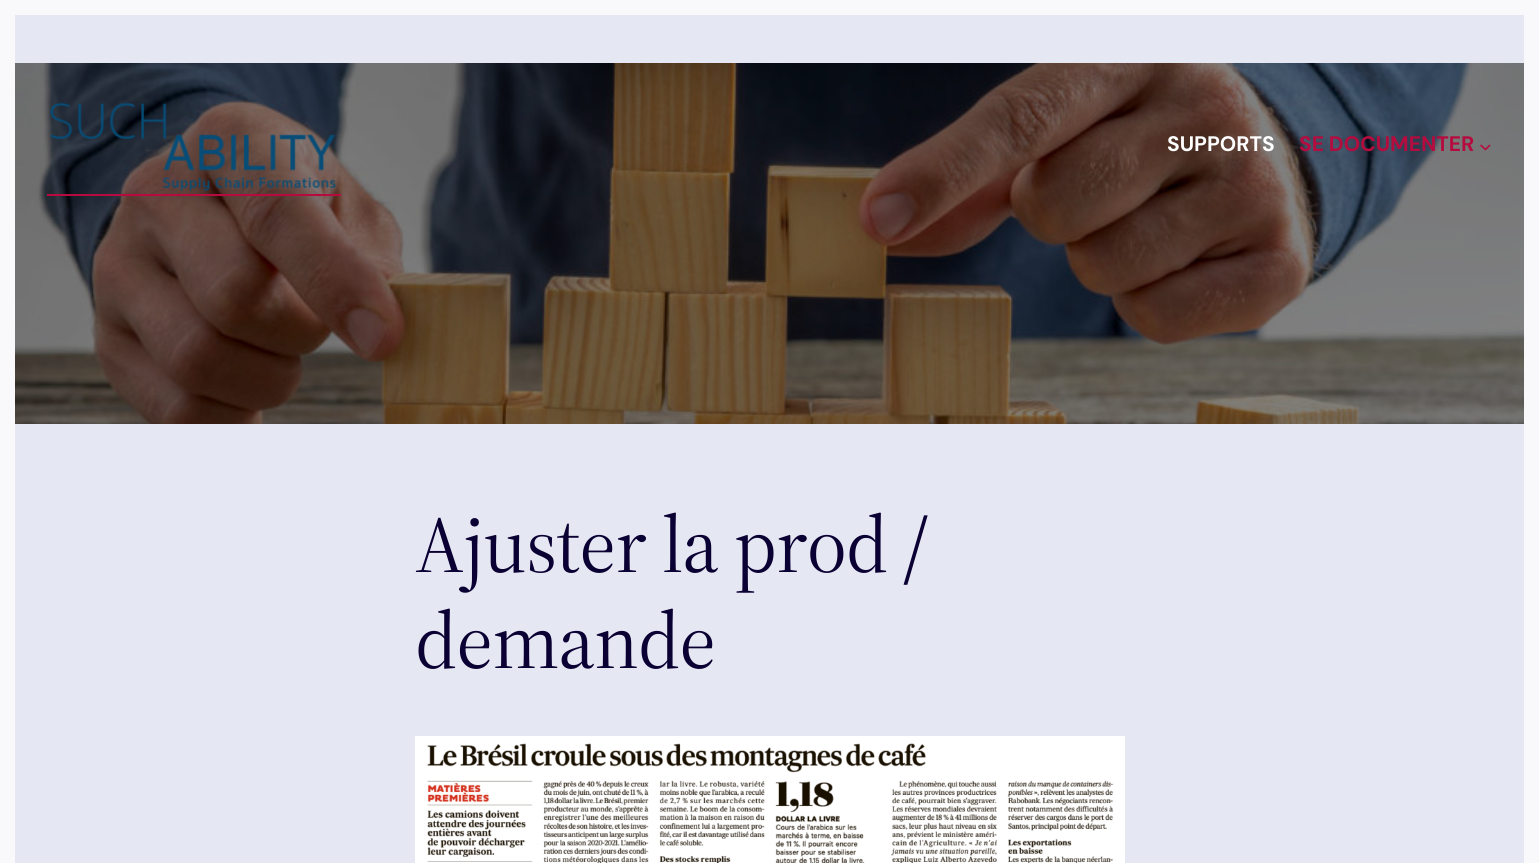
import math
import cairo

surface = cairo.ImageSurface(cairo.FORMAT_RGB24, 1539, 863)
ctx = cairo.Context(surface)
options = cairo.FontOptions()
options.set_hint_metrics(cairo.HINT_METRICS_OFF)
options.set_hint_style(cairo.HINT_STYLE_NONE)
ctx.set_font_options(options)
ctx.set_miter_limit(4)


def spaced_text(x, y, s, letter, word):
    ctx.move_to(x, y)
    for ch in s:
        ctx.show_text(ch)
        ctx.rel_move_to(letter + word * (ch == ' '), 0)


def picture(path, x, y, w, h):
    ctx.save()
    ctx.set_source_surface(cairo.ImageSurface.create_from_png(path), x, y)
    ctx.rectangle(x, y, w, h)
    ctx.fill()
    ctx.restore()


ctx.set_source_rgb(0.898, 0.906, 0.949)
ctx.paint()
ctx.rectangle(7.5, 7.5, 1524, 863)
ctx.set_source_rgb(0.976, 0.976, 0.984)
ctx.set_line_width(15)
ctx.stroke()
picture("img1.png", 15, 63, 1509, 361)
ctx.set_source_rgb(0.71, 0.043, 0.243)
ctx.rectangle(47, 194, 294, 2)
ctx.fill()
picture("img2.png", 50, 102, 286, 89)
ctx.select_font_face("DM Sans", cairo.FONT_SLANT_NORMAL, cairo.FONT_WEIGHT_BOLD)
ctx.set_font_size(21)
ctx.set_source_rgb(1, 1, 1)
ctx.move_to(1167, 151)
ctx.show_text("SUPPORTS")
ctx.set_source_rgb(0.71, 0.043, 0.243)
ctx.move_to(1299, 151)
ctx.show_text("SE DOCUMENTER")
ctx.new_path()
ctx.move_to(1480.5, 145)
ctx.line_to(1485.5, 149.5)
ctx.line_to(1490, 145)
ctx.set_line_width(1.6)
ctx.stroke()
ctx.select_font_face("Source Serif 4")
ctx.set_font_size(80)
ctx.set_source_rgb(0.043, 0, 0.2)
spaced_text(415, 572, "Ajuster la prod /", -0.75, 0)
spaced_text(415, 668, "demande", -0.75, 0)
picture("img3.png", 415, 736, 710, 127)
surface.write_to_png("page.png")
